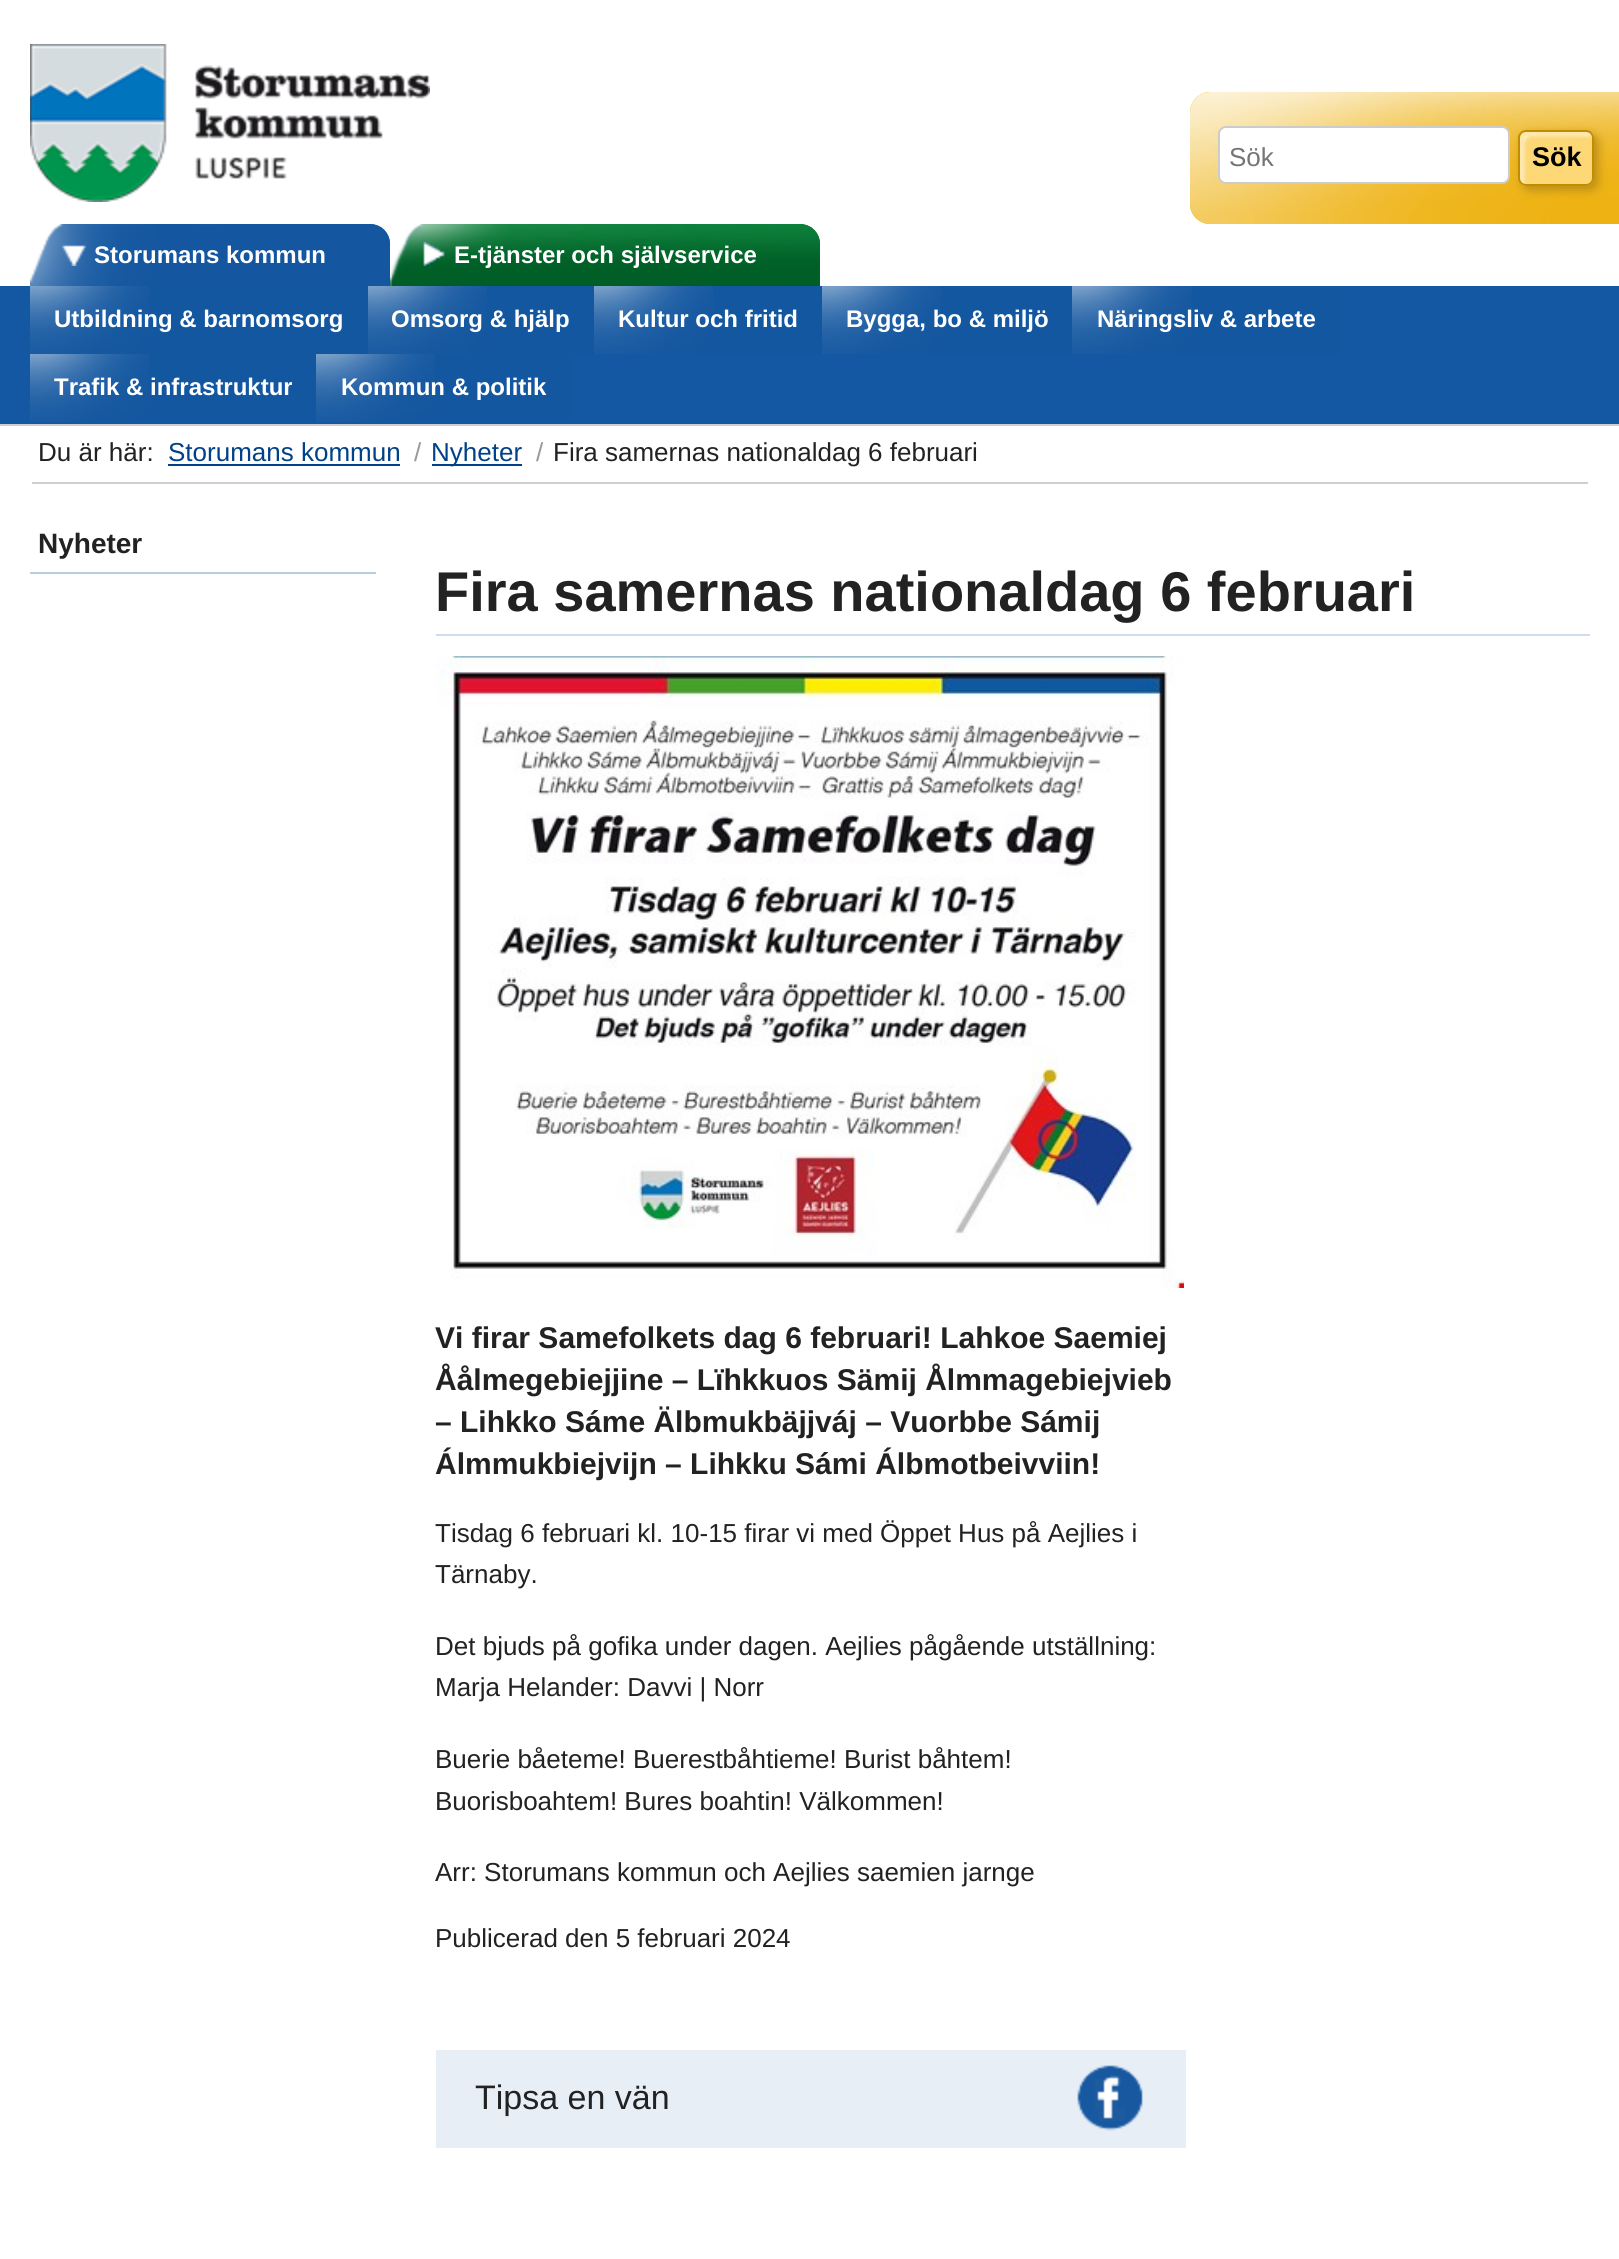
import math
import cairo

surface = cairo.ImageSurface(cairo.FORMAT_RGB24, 1619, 2259)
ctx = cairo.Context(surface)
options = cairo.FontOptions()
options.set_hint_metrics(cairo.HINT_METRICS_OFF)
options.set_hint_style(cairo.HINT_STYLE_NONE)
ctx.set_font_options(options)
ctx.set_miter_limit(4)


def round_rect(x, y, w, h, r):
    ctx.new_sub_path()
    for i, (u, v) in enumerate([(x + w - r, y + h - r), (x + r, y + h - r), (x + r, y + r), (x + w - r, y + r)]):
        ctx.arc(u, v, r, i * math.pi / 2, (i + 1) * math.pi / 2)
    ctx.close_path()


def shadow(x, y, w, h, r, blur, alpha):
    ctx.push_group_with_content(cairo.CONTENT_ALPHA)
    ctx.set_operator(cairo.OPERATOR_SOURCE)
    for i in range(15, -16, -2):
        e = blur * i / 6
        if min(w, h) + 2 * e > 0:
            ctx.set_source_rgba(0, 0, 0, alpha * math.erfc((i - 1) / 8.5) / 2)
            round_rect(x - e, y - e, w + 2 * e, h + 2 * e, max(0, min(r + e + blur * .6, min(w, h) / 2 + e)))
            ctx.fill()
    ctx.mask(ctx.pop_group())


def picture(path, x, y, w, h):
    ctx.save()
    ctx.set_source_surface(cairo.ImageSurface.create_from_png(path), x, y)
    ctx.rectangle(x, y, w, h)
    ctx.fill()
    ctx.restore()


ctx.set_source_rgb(1, 1, 1)
ctx.paint()
picture("img1.png", 30, 44, 400, 158)
ctx.set_source_rgb(0.933, 0.698, 0.075)
ctx.new_path()
ctx.move_to(1210, 92)
ctx.line_to(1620, 92)
ctx.line_to(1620, 224)
ctx.line_to(1210, 224)
ctx.curve_to(1199, 224, 1190, 215, 1190, 204)
ctx.line_to(1190, 112)
ctx.curve_to(1190, 101, 1199, 92, 1210, 92)
ctx.close_path()
ctx.fill()
picture("img2.png", 1190, 92, 429, 132)
ctx.set_source_rgb(1, 1, 1)
round_rect(1219, 127, 290, 56, 7)
ctx.fill_preserve()
ctx.set_source_rgb(0.8, 0.8, 0.8)
ctx.stroke()
ctx.select_font_face("Liberation Sans")
ctx.set_font_size(26)
ctx.set_source_rgb(0.459, 0.459, 0.459)
ctx.move_to(1229, 166)
ctx.show_text("Sök")
ctx.set_source_rgb(0.722, 0.553, 0.086)
shadow(1522, 134, 76, 56, 8, 5, 1)
picture("img3.png", 1520, 132, 74, 54)
round_rect(1519, 131, 74, 54, 7)
ctx.set_source_rgb(0.757, 0.549, 0)
ctx.stroke()
ctx.select_font_face("Liberation Sans", cairo.FONT_SLANT_NORMAL, cairo.FONT_WEIGHT_BOLD)
ctx.set_font_size(27)
ctx.set_source_rgb(0, 0, 0)
ctx.move_to(1532, 166)
ctx.show_text("Sök")
ctx.set_source_rgb(0.078, 0.341, 0.627)
ctx.new_path()
ctx.move_to(30, 224)
ctx.line_to(370, 224)
ctx.curve_to(381, 224, 390, 233, 390, 244)
ctx.line_to(390, 286)
ctx.line_to(30, 286)
ctx.close_path()
ctx.fill()
picture("img4.png", 30, 224, 360, 62)
picture("img5.png", 62, 245, 24, 21)
ctx.set_font_size(24)
ctx.set_source_rgb(1, 1, 1)
ctx.move_to(94, 263)
ctx.show_text("Storumans kommun")
ctx.set_source_rgb(0, 0.365, 0.149)
ctx.new_path()
ctx.move_to(390, 224)
ctx.line_to(800, 224)
ctx.curve_to(811, 224, 820, 233, 820, 244)
ctx.line_to(820, 286)
ctx.line_to(390, 286)
ctx.close_path()
ctx.fill()
picture("img6.png", 390, 224, 430, 60)
ctx.set_source_rgba(1, 1, 1, 0.2)
ctx.rectangle(390, 270, 2, 16)
ctx.fill()
picture("img7.png", 423, 242, 22, 24)
ctx.set_source_rgb(1, 1, 1)
ctx.move_to(454, 263)
ctx.show_text("E-tjänster och självservice")
ctx.set_source_rgb(0.082, 0.341, 0.639)
ctx.rectangle(0, 286, 1619, 138)
ctx.fill()
ctx.set_source_rgb(0.812, 0.812, 0.82)
ctx.rectangle(0, 424, 1619, 2)
ctx.fill()
ctx.set_source_rgb(0.078, 0.341, 0.627)
ctx.rectangle(149, 286, 219, 68)
ctx.fill()
picture("img8.png", 30, 286, 119, 68)
ctx.set_source_rgb(1, 1, 1)
ctx.move_to(54, 327)
ctx.show_text("Utbildning & barnomsorg")
ctx.set_source_rgb(0.078, 0.341, 0.627)
ctx.rectangle(487, 286, 107, 68)
ctx.fill()
picture("img9.png", 368, 286, 119, 68)
ctx.set_source_rgb(1, 1, 1)
ctx.move_to(391, 327)
ctx.show_text("Omsorg & hjälp")
ctx.set_source_rgb(0.078, 0.341, 0.627)
ctx.rectangle(713, 286, 109, 68)
ctx.fill()
picture("img10.png", 594, 286, 119, 68)
ctx.set_source_rgb(1, 1, 1)
ctx.move_to(618, 327)
ctx.show_text("Kultur och fritid")
ctx.set_source_rgb(0.078, 0.341, 0.627)
ctx.rectangle(941, 286, 131, 68)
ctx.fill()
picture("img11.png", 822, 286, 119, 68)
ctx.set_source_rgb(1, 1, 1)
ctx.move_to(846, 327)
ctx.show_text("Bygga, bo & miljö")
ctx.set_source_rgb(0.078, 0.341, 0.627)
ctx.rectangle(1192, 286, 148, 68)
ctx.fill()
picture("img12.png", 1072, 286, 120, 68)
ctx.set_source_rgb(1, 1, 1)
ctx.move_to(1097, 327)
ctx.show_text("Näringsliv & arbete")
ctx.set_source_rgb(0.078, 0.341, 0.627)
ctx.rectangle(149, 354, 167, 68)
ctx.fill()
picture("img13.png", 30, 354, 119, 68)
ctx.set_source_rgb(1, 1, 1)
ctx.move_to(54, 395)
ctx.show_text("Trafik & infrastruktur")
ctx.set_source_rgb(0.078, 0.341, 0.627)
ctx.rectangle(435, 354, 135, 68)
ctx.fill()
picture("img14.png", 316, 354, 119, 68)
ctx.set_source_rgb(1, 1, 1)
ctx.move_to(341, 395)
ctx.show_text("Kommun & politik")
ctx.set_source_rgb(0.812, 0.812, 0.812)
ctx.rectangle(32, 482, 1556, 2)
ctx.fill()
ctx.select_font_face("Liberation Sans")
ctx.set_font_size(26)
ctx.set_source_rgb(0.133, 0.133, 0.133)
ctx.move_to(38, 461)
ctx.show_text("Du är här:")
ctx.set_source_rgb(0, 0.255, 0.529)
ctx.move_to(168, 461)
ctx.show_text("Storumans kommun")
ctx.rectangle(168, 464, 232, 2)
ctx.fill()
ctx.set_source_rgb(0.6, 0.6, 0.6)
ctx.move_to(414, 461)
ctx.show_text("/")
ctx.set_source_rgb(0, 0.255, 0.529)
ctx.rectangle(432, 464, 90, 2)
ctx.fill()
ctx.move_to(431, 461)
ctx.show_text("Nyheter")
ctx.set_source_rgb(0.6, 0.6, 0.6)
ctx.move_to(536, 461)
ctx.show_text("/")
ctx.set_source_rgb(0.133, 0.133, 0.133)
ctx.move_to(553, 461)
ctx.show_text("Fira samernas nationaldag 6 februari")
ctx.select_font_face("Liberation Sans", cairo.FONT_SLANT_NORMAL, cairo.FONT_WEIGHT_BOLD)
ctx.set_font_size(28)
ctx.move_to(38, 553)
ctx.show_text("Nyheter")
ctx.set_source_rgb(0.722, 0.8, 0.894)
ctx.rectangle(30, 572, 346, 2)
ctx.fill()
ctx.set_source_rgb(0.816, 0.867, 0.929)
ctx.rectangle(436, 634, 1154, 2)
ctx.fill()
ctx.set_font_size(56)
ctx.set_source_rgb(0.133, 0.133, 0.133)
ctx.move_to(435, 611)
ctx.show_text("Fira samernas nationaldag 6 februari")
picture("img15.png", 436, 656, 748, 632)
ctx.set_font_size(30)
ctx.move_to(435, 1348)
ctx.show_text("Vi firar Samefolkets dag 6 februari! Lahkoe Saemiej")
ctx.move_to(435, 1390)
ctx.show_text("Åålmegebiejjine – Lïhkkuos Sämij Ålmmagebiejvieb")
ctx.move_to(435, 1432)
ctx.show_text("– Lihkko Sáme Älbmukbäjjváj – Vuorbbe Sámij")
ctx.move_to(435, 1474)
ctx.show_text("Álmmukbiejvijn – Lihkku Sámi Álbmotbeivviin!")
ctx.select_font_face("Liberation Sans")
ctx.set_font_size(26)
ctx.move_to(435, 1542)
ctx.show_text("Tisdag 6 februari kl. 10-15 firar vi med Öppet Hus på Aejlies i")
ctx.move_to(435, 1583)
ctx.show_text("Tärnaby.")
ctx.move_to(435, 1655)
ctx.show_text("Det bjuds på gofika under dagen. Aejlies pågående utställning:")
ctx.move_to(435, 1696)
ctx.show_text("Marja Helander: Davvi | Norr")
ctx.move_to(435, 1768)
ctx.show_text("Buerie båeteme! Buerestbåhtieme! Burist båhtem!")
ctx.move_to(435, 1810)
ctx.show_text("Buorisboahtem! Bures boahtin! Välkommen!")
ctx.move_to(435, 1881)
ctx.show_text("Arr: Storumans kommun och Aejlies saemien jarnge")
ctx.move_to(435, 1947)
ctx.show_text("Publicerad den 5 februari 2024")
ctx.set_source_rgb(0.906, 0.933, 0.961)
ctx.rectangle(436, 2050, 750, 98)
ctx.fill()
ctx.set_font_size(34)
ctx.set_source_rgb(0.133, 0.133, 0.133)
ctx.move_to(475, 2109)
ctx.show_text("Tipsa en vän")
picture("img16.png", 1077, 2065, 66, 66)
surface.write_to_png("page.png")
